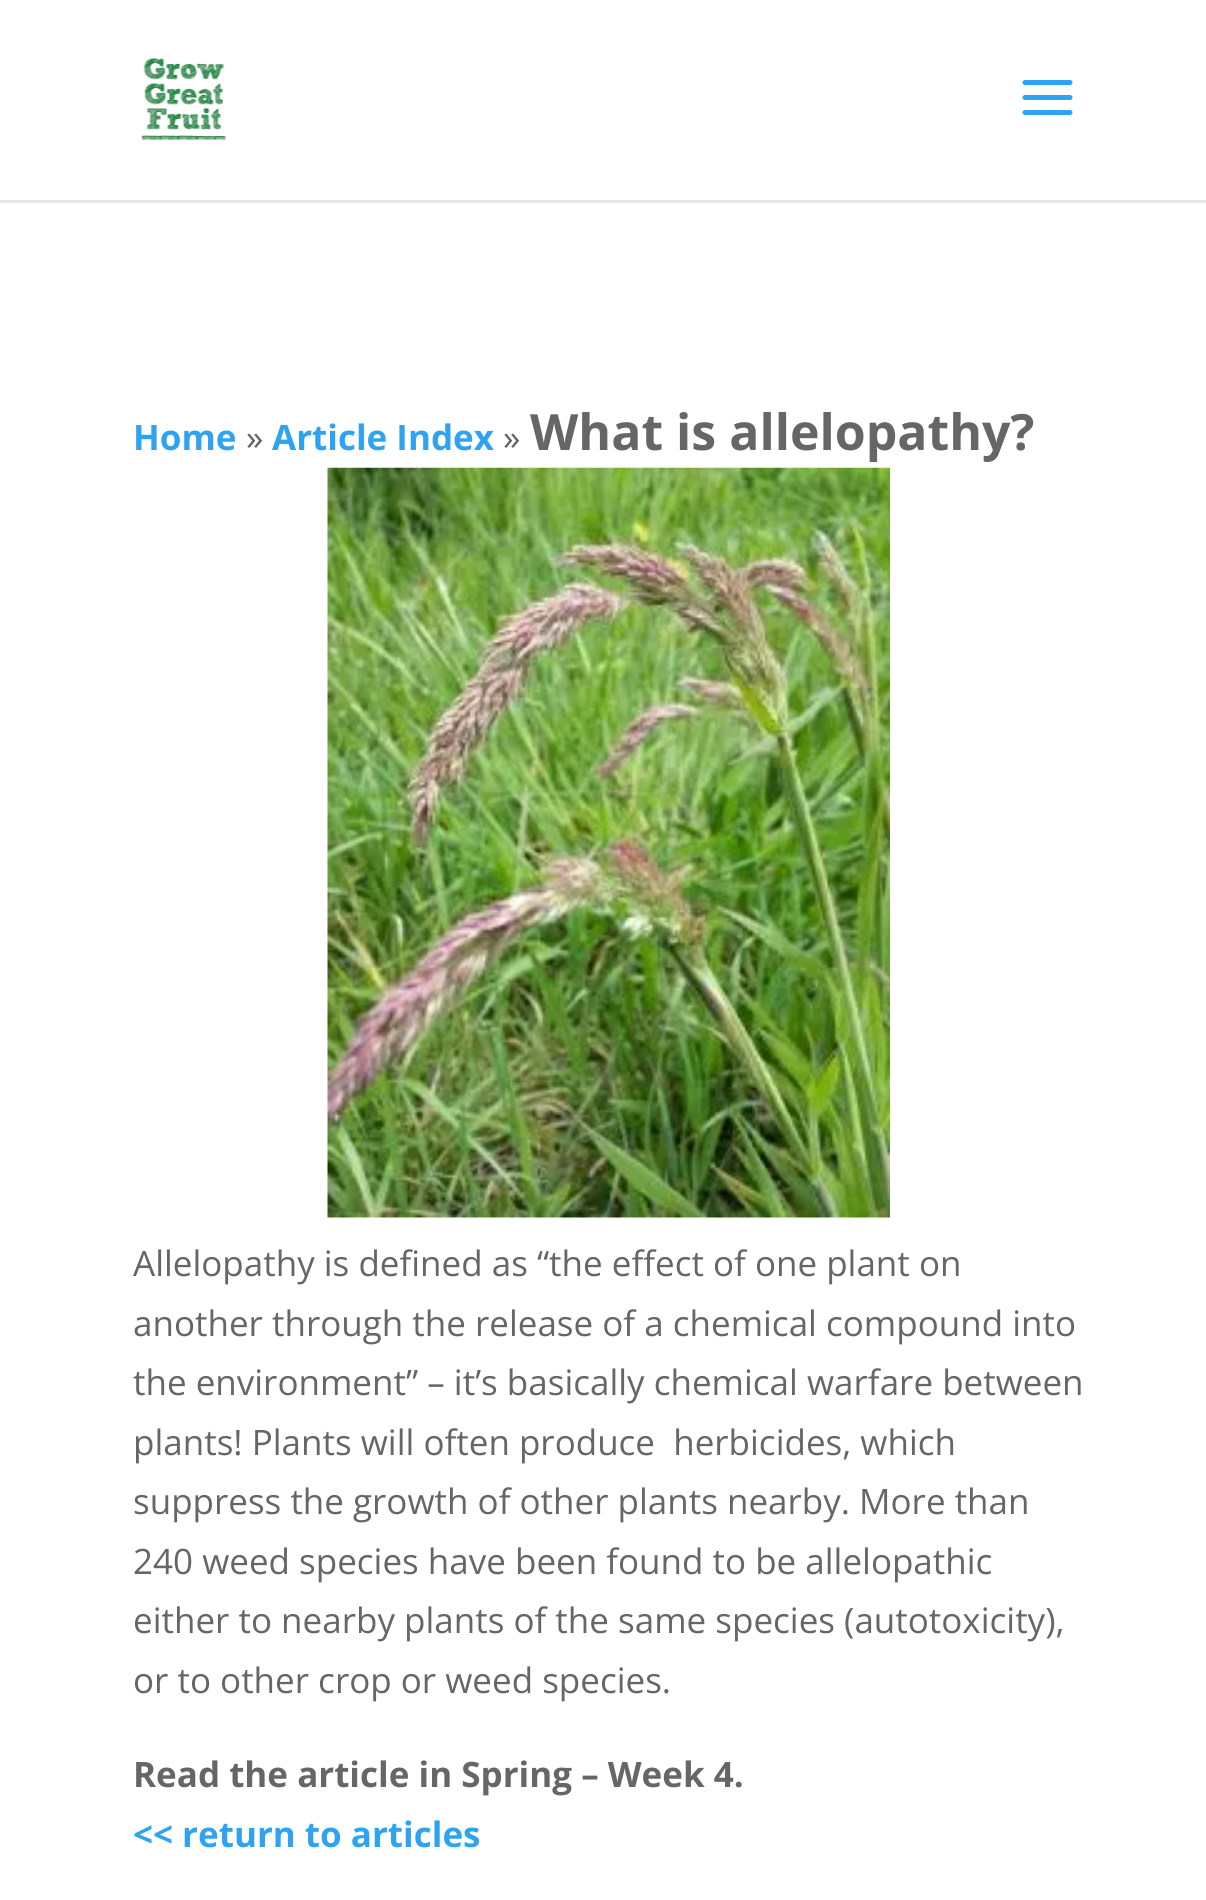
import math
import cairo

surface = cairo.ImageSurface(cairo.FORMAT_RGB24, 1206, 1900)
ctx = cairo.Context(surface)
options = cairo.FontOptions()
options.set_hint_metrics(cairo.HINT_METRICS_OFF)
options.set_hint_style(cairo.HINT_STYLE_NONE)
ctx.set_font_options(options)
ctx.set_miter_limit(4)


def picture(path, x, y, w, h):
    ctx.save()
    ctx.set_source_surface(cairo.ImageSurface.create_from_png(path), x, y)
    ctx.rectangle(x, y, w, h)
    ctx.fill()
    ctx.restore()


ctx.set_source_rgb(1, 1, 1)
ctx.paint()
ctx.set_source_rgb(0.902, 0.902, 0.902)
ctx.new_path()
ctx.move_to(0, 200)
ctx.line_to(0, 203)
ctx.line_to(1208, 203)
ctx.line_to(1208, 3)
ctx.line_to(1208, 200)
ctx.close_path()
ctx.fill()
picture("img1.png", 141, 57, 86, 84)
picture("img2.png", 1022, 80, 51, 35)
ctx.select_font_face("Open Sans", cairo.FONT_SLANT_NORMAL, cairo.FONT_WEIGHT_BOLD)
ctx.set_font_size(35)
ctx.set_source_rgb(0.18, 0.639, 0.949)
ctx.move_to(133, 450)
ctx.show_text("Home")
ctx.select_font_face("Open Sans")
ctx.set_source_rgb(0.4, 0.4, 0.4)
ctx.move_to(246, 450)
ctx.show_text("»")
ctx.select_font_face("Open Sans", cairo.FONT_SLANT_NORMAL, cairo.FONT_WEIGHT_BOLD)
ctx.set_source_rgb(0.18, 0.639, 0.949)
ctx.move_to(272, 450)
ctx.show_text("Article Index")
ctx.select_font_face("Open Sans")
ctx.set_source_rgb(0.4, 0.4, 0.4)
ctx.move_to(503, 450)
ctx.show_text("»")
ctx.select_font_face("Open Sans", cairo.FONT_SLANT_NORMAL, cairo.FONT_WEIGHT_BOLD)
ctx.set_font_size(50)
ctx.move_to(530, 450)
ctx.show_text("What is allelopathy?")
picture("img3.png", 327, 467, 563, 751)
ctx.select_font_face("Open Sans")
ctx.set_font_size(35)
ctx.move_to(133, 1276)
ctx.show_text("Allelopathy is defined as “the effect of one plant on")
ctx.move_to(133, 1336)
ctx.show_text("another through the release of a chemical compound into")
ctx.move_to(133, 1395)
ctx.show_text("the environment” – it’s basically chemical warfare between")
ctx.move_to(133, 1455)
ctx.show_text("plants! Plants will often produce  herbicides, which")
ctx.move_to(133, 1514)
ctx.show_text("suppress the growth of other plants nearby. More than")
ctx.move_to(133, 1574)
ctx.show_text("240 weed species have been found to be allelopathic")
ctx.move_to(133, 1633)
ctx.show_text("either to nearby plants of the same species (autotoxicity),")
ctx.move_to(133, 1693)
ctx.show_text("or to other crop or weed species.")
ctx.select_font_face("Open Sans", cairo.FONT_SLANT_NORMAL, cairo.FONT_WEIGHT_BOLD)
ctx.move_to(133, 1787)
ctx.show_text("Read the article in Spring – Week 4.")
ctx.set_source_rgb(0.18, 0.639, 0.949)
ctx.move_to(133, 1847)
ctx.show_text("<< return to articles")
surface.write_to_png("page.png")
